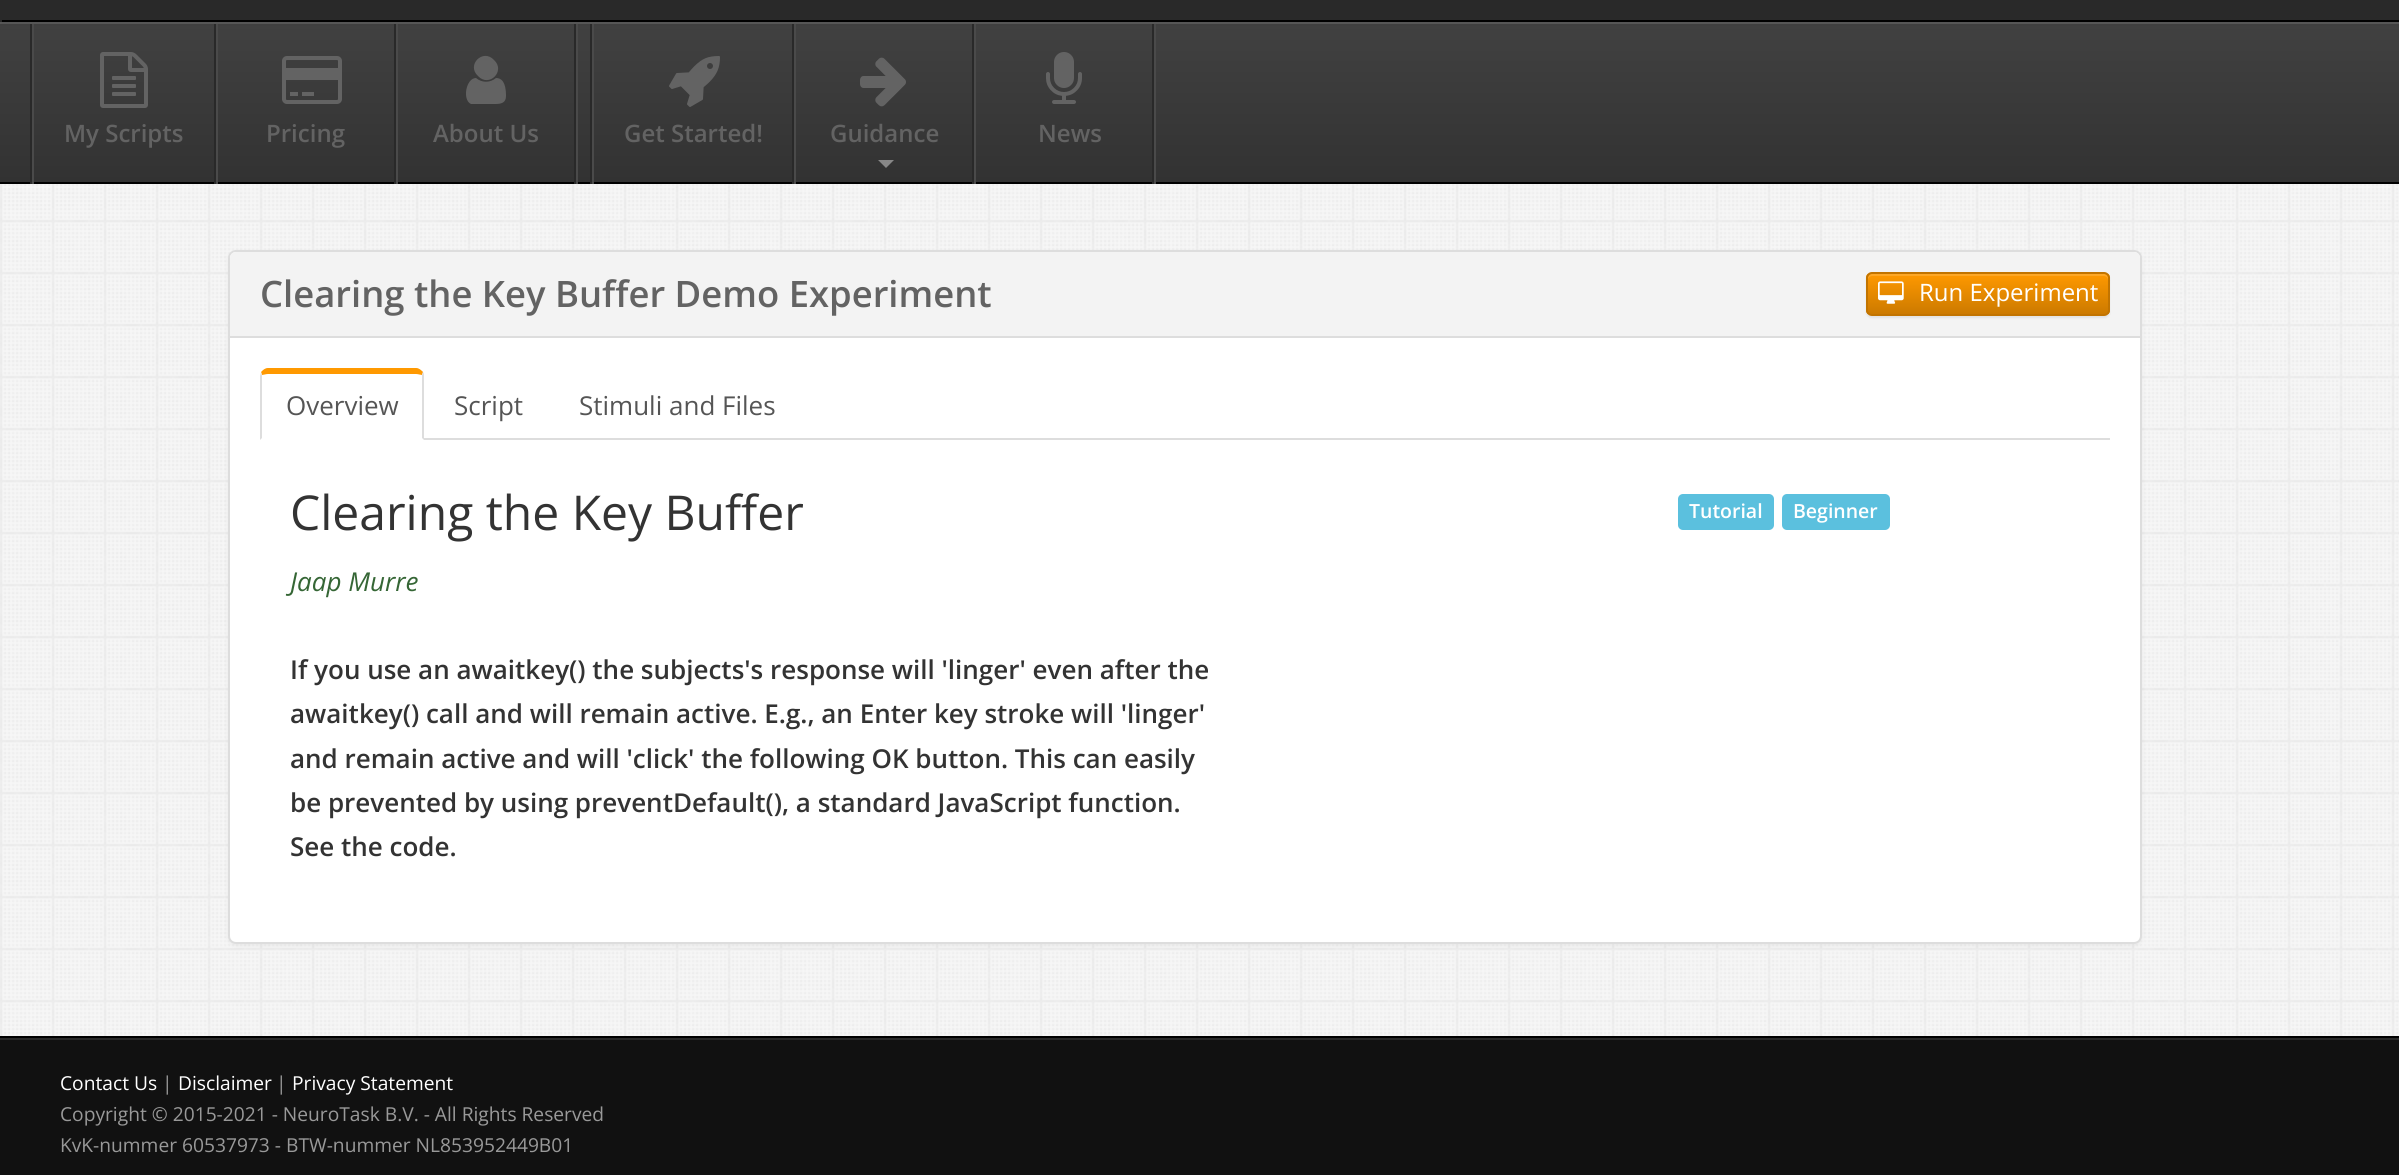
import math
import cairo

surface = cairo.ImageSurface(cairo.FORMAT_RGB24, 2399, 1175)
ctx = cairo.Context(surface)
options = cairo.FontOptions()
options.set_hint_metrics(cairo.HINT_METRICS_OFF)
options.set_hint_style(cairo.HINT_STYLE_NONE)
ctx.set_font_options(options)
ctx.set_miter_limit(4)


def round_rect(x, y, w, h, r):
    ctx.new_sub_path()
    for i, (u, v) in enumerate([(x + w - r, y + h - r), (x + r, y + h - r), (x + r, y + r), (x + w - r, y + r)]):
        ctx.arc(u, v, r, i * math.pi / 2, (i + 1) * math.pi / 2)
    ctx.close_path()


def shadow(x, y, w, h, r, blur, alpha):
    ctx.push_group_with_content(cairo.CONTENT_ALPHA)
    ctx.set_operator(cairo.OPERATOR_SOURCE)
    for i in range(15, -16, -2):
        e = blur * i / 6
        if min(w, h) + 2 * e > 0:
            ctx.set_source_rgba(0, 0, 0, alpha * math.erfc((i - 1) / 8.5) / 2)
            round_rect(x - e, y - e, w + 2 * e, h + 2 * e, max(0, min(r + e + blur * .6, min(w, h) / 2 + e)))
            ctx.fill()
    ctx.mask(ctx.pop_group())


def picture(path, x, y, w, h):
    ctx.save()
    ctx.set_source_surface(cairo.ImageSurface.create_from_png(path), x, y)
    ctx.rectangle(x, y, w, h)
    ctx.fill()
    ctx.restore()


ctx.set_source_rgb(1, 1, 1)
ctx.paint()
picture("img1.png", 0, 184, 2399, 852)
ctx.set_source_rgb(0.349, 0.349, 0.349)
ctx.rectangle(0, 22, 2399, 2)
ctx.fill()
gradient = cairo.LinearGradient(1200, 24, 1200, 182)
gradient.add_color_stop_rgba(0, 0.255, 0.255, 0.255, 1)
gradient.add_color_stop_rgba(1, 0.196, 0.196, 0.196, 1)
ctx.set_source(gradient)
ctx.rectangle(0, 24, 2399, 158)
ctx.fill()
ctx.set_source_rgb(0, 0, 0)
ctx.rectangle(0, 182, 2399, 2)
ctx.fill()
ctx.set_source_rgb(0.29, 0.29, 0.29)
ctx.rectangle(1154, 24, 2, 160)
ctx.fill()
ctx.set_source_rgb(0.161, 0.161, 0.161)
ctx.rectangle(30, 24, 2, 160)
ctx.fill()
ctx.set_source_rgb(0, 0, 0)
shadow(0, -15, 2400, 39, 0, 5, 0.07)
ctx.set_source_rgb(0.161, 0.161, 0.161)
ctx.rectangle(2, 0, 2397, 20)
ctx.fill()
ctx.set_source_rgb(0, 0, 0)
ctx.rectangle(0, 20, 2399, 2)
ctx.fill()
ctx.set_source_rgb(0.161, 0.161, 0.161)
ctx.rectangle(0, 0, 2, 22)
ctx.fill()
ctx.rectangle(214, 24, 2, 160)
ctx.fill()
ctx.set_source_rgb(0.29, 0.29, 0.29)
ctx.rectangle(32, 24, 2, 160)
ctx.fill()
picture("img2.png", 100, 52, 48, 56)
ctx.select_font_face("Open Sans SemiBold")
ctx.set_font_size(24)
ctx.set_source_rgb(0.388, 0.388, 0.388)
ctx.move_to(64, 142)
ctx.show_text("My Scripts")
ctx.set_source_rgb(0.161, 0.161, 0.161)
ctx.rectangle(394, 24, 2, 160)
ctx.fill()
ctx.set_source_rgb(0.29, 0.29, 0.29)
ctx.rectangle(216, 24, 2, 160)
ctx.fill()
picture("img3.png", 282, 56, 60, 48)
ctx.set_source_rgb(0.388, 0.388, 0.388)
ctx.move_to(266, 142)
ctx.show_text("Pricing")
ctx.set_source_rgb(0.161, 0.161, 0.161)
ctx.rectangle(574, 24, 2, 160)
ctx.fill()
ctx.set_source_rgb(0.29, 0.29, 0.29)
ctx.rectangle(396, 24, 2, 160)
ctx.fill()
ctx.set_source_rgb(0.388, 0.388, 0.388)
ctx.new_path()
ctx.move_to(506, 96)
ctx.curve_to(506, 103, 501, 104, 495, 104)
ctx.line_to(471, 104)
ctx.curve_to(462, 100, 466, 78, 476, 78)
ctx.curve_to(482, 83, 490, 83, 496, 78)
ctx.curve_to(505, 78, 506, 89, 506, 96)
ctx.close_path()
ctx.move_to(494, 60)
ctx.curve_to(506, 71, 489, 88, 478, 76)
ctx.curve_to(466, 65, 483, 48, 494, 60)
ctx.close_path()
ctx.fill()
ctx.move_to(433, 142)
ctx.show_text("About Us")
ctx.set_source_rgb(0.161, 0.161, 0.161)
ctx.rectangle(590, 24, 2, 160)
ctx.fill()
ctx.set_source_rgb(0.29, 0.29, 0.29)
ctx.rectangle(576, 24, 2, 160)
ctx.fill()
ctx.set_source_rgb(0.161, 0.161, 0.161)
ctx.rectangle(792, 24, 2, 160)
ctx.fill()
ctx.set_source_rgb(0.29, 0.29, 0.29)
ctx.rectangle(592, 24, 2, 160)
ctx.fill()
picture("img4.png", 669, 56, 51, 51)
ctx.set_source_rgb(0.388, 0.388, 0.388)
ctx.move_to(624, 142)
ctx.show_text("Get Started!")
ctx.set_source_rgb(0.161, 0.161, 0.161)
ctx.rectangle(972, 24, 2, 160)
ctx.fill()
ctx.set_source_rgb(0.29, 0.29, 0.29)
ctx.rectangle(794, 24, 2, 160)
ctx.fill()
picture("img5.png", 860, 57, 46, 50)
ctx.set_source_rgb(0.388, 0.388, 0.388)
ctx.move_to(830, 142)
ctx.show_text("Guidance")
ctx.set_source_rgb(0.533, 0.533, 0.533)
ctx.new_path()
ctx.move_to(878, 160)
ctx.line_to(894, 160)
ctx.line_to(886, 168)
ctx.close_path()
ctx.fill()
ctx.set_source_rgb(0.161, 0.161, 0.161)
ctx.rectangle(1152, 24, 2, 160)
ctx.fill()
ctx.set_source_rgb(0.29, 0.29, 0.29)
ctx.rectangle(974, 24, 2, 160)
ctx.fill()
picture("img6.png", 1046, 52, 36, 52)
ctx.set_source_rgb(0.388, 0.388, 0.388)
ctx.move_to(1038, 142)
ctx.show_text("News")
ctx.set_source_rgb(0, 0, 0)
shadow(228, 252, 1914, 694, 8, 2, 0.05)
ctx.set_source_rgb(1, 1, 1)
round_rect(229, 251, 1912, 692, 7)
ctx.fill_preserve()
ctx.set_source_rgb(0.867, 0.867, 0.867)
ctx.stroke()
ctx.set_source_rgb(0.953, 0.953, 0.953)
ctx.new_path()
ctx.move_to(236, 252)
ctx.line_to(2134, 252)
ctx.curve_to(2137.5, 252, 2140, 254.5, 2140, 258)
ctx.line_to(2140, 338)
ctx.line_to(230, 338)
ctx.line_to(230, 258)
ctx.curve_to(230, 254.5, 232.5, 252, 236, 252)
ctx.close_path()
ctx.fill()
ctx.set_source_rgb(0.867, 0.867, 0.867)
ctx.rectangle(230, 336, 1910, 2)
ctx.fill()
ctx.set_font_size(36.4)
ctx.set_source_rgb(0.388, 0.388, 0.388)
ctx.move_to(260, 307)
ctx.show_text("Clearing the Key Buffer Demo Experiment")
ctx.set_source_rgb(0, 0, 0)
shadow(1866, 274, 244, 44, 6, 1, 0.07)
ctx.save()
round_rect(1866, 272, 244, 44, 6)
ctx.clip()
gradient = cairo.LinearGradient(1988, 274, 1988, 314)
gradient.add_color_stop_rgba(0, 1, 0.6, 0, 1)
gradient.add_color_stop_rgba(1, 0.8, 0.478, 0, 1)
ctx.set_source(gradient)
ctx.rectangle(1866, 274, 244, 40)
ctx.fill()
ctx.restore()
ctx.set_source_rgba(1, 1, 1, 0.15)
ctx.new_path()
ctx.move_to(1872, 276)
ctx.line_to(2104, 276)
ctx.curve_to(2106, 276, 2108, 278, 2108, 280)
ctx.line_to(2108, 278)
ctx.curve_to(2108, 276, 2106, 274, 2104, 274)
ctx.line_to(1872, 274)
ctx.curve_to(1870, 274, 1868, 276, 1868, 278)
ctx.line_to(1868, 280)
ctx.curve_to(1868, 278, 1870, 276, 1872, 276)
ctx.close_path()
ctx.fill()
round_rect(1867, 273, 242, 42, 5)
ctx.set_source_rgb(0.761, 0.455, 0)
ctx.stroke()
picture("img7.png", 1878, 281, 26, 23)
ctx.select_font_face("Open Sans")
ctx.set_font_size(24)
ctx.set_source_rgb(1, 1, 1)
ctx.move_to(1919, 301)
ctx.show_text("Run Experiment")
ctx.set_source_rgb(0.867, 0.867, 0.867)
ctx.rectangle(424, 438, 1686, 2)
ctx.fill()
ctx.set_source_rgb(1, 0.6, 0)
ctx.new_path()
ctx.move_to(268, 368)
ctx.curve_to(265, 368, 263, 370, 261, 372)
ctx.line_to(262, 375)
ctx.curve_to(263, 375, 266, 374, 268, 374)
ctx.line_to(416, 374)
ctx.curve_to(418, 374, 421, 375, 422, 375)
ctx.line_to(423, 372)
ctx.curve_to(421, 370, 419, 368, 416, 368)
ctx.close_path()
ctx.fill()
ctx.set_source_rgb(0.867, 0.867, 0.867)
ctx.new_path()
ctx.move_to(424, 440)
ctx.line_to(424, 376)
ctx.curve_to(424, 375, 424, 373, 423, 372)
ctx.line_to(422, 375)
ctx.line_to(422, 376)
ctx.line_to(422, 438)
ctx.close_path()
ctx.fill()
ctx.new_path()
ctx.move_to(260, 440)
ctx.line_to(262, 438)
ctx.line_to(262, 376)
ctx.line_to(262, 375)
ctx.line_to(261, 372)
ctx.line_to(260, 376)
ctx.close_path()
ctx.fill()
ctx.set_font_size(26)
ctx.set_source_rgb(0.333, 0.333, 0.333)
ctx.move_to(286, 415)
ctx.show_text("Overview")
ctx.move_to(454, 415)
ctx.show_text("Script")
ctx.move_to(579, 415)
ctx.show_text("Stimuli and Files")
ctx.set_font_size(48)
ctx.set_source_rgb(0.2, 0.2, 0.2)
ctx.move_to(290, 530)
ctx.show_text("Clearing the Key Buffer")
ctx.select_font_face("Open Sans", cairo.FONT_SLANT_ITALIC)
ctx.set_font_size(26)
ctx.set_source_rgb(0.208, 0.4, 0.208)
ctx.move_to(290, 591)
ctx.show_text("Jaap Murre")
ctx.select_font_face("Open Sans SemiBold")
ctx.set_source_rgb(0.2, 0.2, 0.2)
ctx.move_to(290, 679)
ctx.show_text("If you use an awaitkey() the subjects's response will 'linger' even after the")
ctx.move_to(290, 723)
ctx.show_text("awaitkey() call and will remain active. E.g., an Enter key stroke will 'linger'")
ctx.move_to(290, 768)
ctx.show_text("and remain active and will 'click' the following OK button. This can easily")
ctx.move_to(290, 812)
ctx.show_text("be prevented by using preventDefault(), a standard JavaScript function.")
ctx.move_to(290, 856)
ctx.show_text("See the code.")
ctx.set_source_rgb(0.357, 0.753, 0.871)
round_rect(1678, 494, 96, 36, 5)
ctx.fill()
ctx.set_font_size(19.5)
ctx.set_source_rgb(1, 1, 1)
ctx.move_to(1689, 518)
ctx.show_text("Tutorial")
ctx.set_source_rgb(0.357, 0.753, 0.871)
round_rect(1782, 494, 108, 36, 5)
ctx.fill()
ctx.set_source_rgb(1, 1, 1)
ctx.move_to(1793, 518)
ctx.show_text("Beginner")
ctx.set_source_rgb(0.067, 0.067, 0.067)
ctx.rectangle(0, 1040, 2399, 135)
ctx.fill()
ctx.set_source_rgb(0.161, 0.161, 0.161)
ctx.rectangle(0, 1038, 2399, 2)
ctx.fill()
ctx.set_source_rgb(0, 0, 0)
ctx.rectangle(0, 1036, 2399, 2)
ctx.fill()
ctx.select_font_face("Open Sans")
ctx.set_font_size(19.2)
ctx.set_source_rgb(1, 1, 1)
ctx.move_to(60, 1090)
ctx.show_text("Contact Us")
ctx.set_source_rgb(0.6, 0.6, 0.6)
ctx.move_to(162, 1090)
ctx.show_text("|")
ctx.set_source_rgb(1, 1, 1)
ctx.move_to(178, 1090)
ctx.show_text("Disclaimer")
ctx.set_source_rgb(0.6, 0.6, 0.6)
ctx.move_to(276, 1090)
ctx.show_text("|")
ctx.set_source_rgb(1, 1, 1)
ctx.move_to(292, 1090)
ctx.show_text("Privacy Statement")
ctx.set_source_rgb(0.6, 0.6, 0.6)
ctx.move_to(60, 1121)
ctx.show_text("Copyright © 2015-2021 - NeuroTask B.V. - All Rights Reserved")
ctx.move_to(60, 1152)
ctx.show_text("KvK-nummer 60537973 - BTW-nummer NL853952449B01")
surface.write_to_png("page.png")
